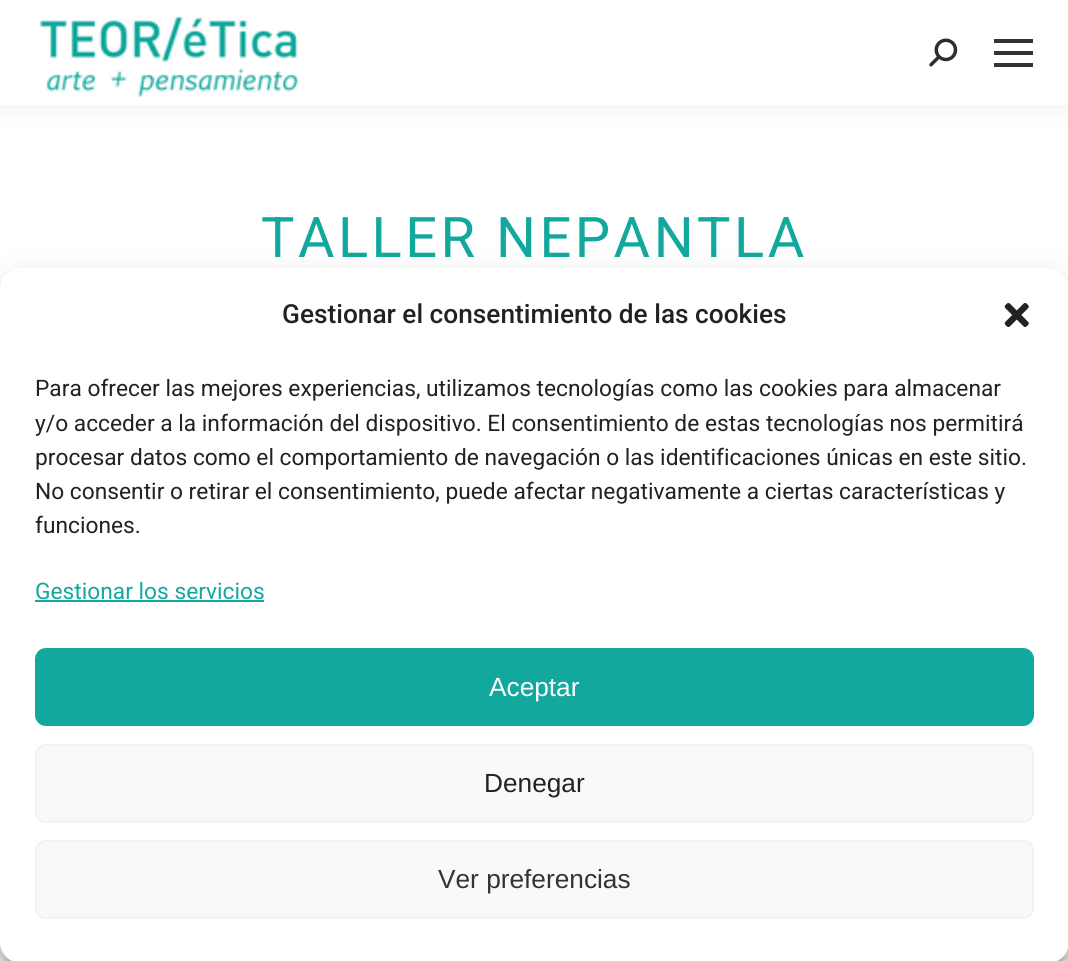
import math
import cairo

surface = cairo.ImageSurface(cairo.FORMAT_RGB24, 1068, 961)
ctx = cairo.Context(surface)
options = cairo.FontOptions()
options.set_hint_metrics(cairo.HINT_METRICS_OFF)
options.set_hint_style(cairo.HINT_STYLE_NONE)
ctx.set_font_options(options)
ctx.set_miter_limit(4)


def spaced_text(x, y, s, letter, word):
    ctx.move_to(x, y)
    for ch in s:
        ctx.show_text(ch)
        ctx.rel_move_to(letter + word * (ch == ' '), 0)


def round_rect(x, y, w, h, r):
    ctx.new_sub_path()
    for i, (u, v) in enumerate([(x + w - r, y + h - r), (x + r, y + h - r), (x + r, y + r), (x + w - r, y + r)]):
        ctx.arc(u, v, r, i * math.pi / 2, (i + 1) * math.pi / 2)
    ctx.close_path()


def shadow(x, y, w, h, r, blur, alpha):
    ctx.push_group_with_content(cairo.CONTENT_ALPHA)
    ctx.set_operator(cairo.OPERATOR_SOURCE)
    for i in range(15, -16, -2):
        e = blur * i / 6
        if min(w, h) + 2 * e > 0:
            ctx.set_source_rgba(0, 0, 0, alpha * math.erfc((i - 1) / 8.5) / 2)
            round_rect(x - e, y - e, w + 2 * e, h + 2 * e, max(0, min(r + e + blur * .6, min(w, h) / 2 + e)))
            ctx.fill()
    ctx.mask(ctx.pop_group())


def picture(path, x, y, w, h):
    ctx.save()
    ctx.set_source_surface(cairo.ImageSurface.create_from_png(path), x, y)
    ctx.rectangle(x, y, w, h)
    ctx.fill()
    ctx.restore()


ctx.set_source_rgb(1, 1, 1)
ctx.paint()
ctx.set_source_rgb(0, 0, 0)
shadow(-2, -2, 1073, 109, 0, 13, 0.07)
ctx.set_source_rgb(1, 1, 1)
ctx.rectangle(0, 0, 1068, 105)
ctx.fill()
picture("img1.png", 39, 15, 259, 82)
picture("img2.png", 929, 38, 29, 29)
ctx.set_source_rgb(0.2, 0.2, 0.2)
ctx.rectangle(994, 39, 39, 4)
ctx.fill()
ctx.rectangle(994, 51, 39, 4)
ctx.fill()
ctx.rectangle(994, 63, 39, 4)
ctx.fill()
ctx.select_font_face("Roboto")
ctx.set_font_size(56)
ctx.set_source_rgb(0.071, 0.659, 0.616)
spaced_text(261, 257, "TALLER NEPANTLA", 3.5, 0)
ctx.set_source_rgb(0, 0, 0)
shadow(0, 278, 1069, 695, 21, 5, 0.23)
shadow(0, 285, 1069, 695, 21, 17.5, 0.19)
ctx.set_source_rgb(1, 1, 1)
round_rect(0, 268, 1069, 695, 21)
ctx.fill()
ctx.select_font_face("Roboto Medium")
ctx.set_font_size(26.25)
ctx.set_source_rgb(0.133, 0.133, 0.133)
ctx.move_to(282, 323)
ctx.show_text("Gestionar el consentimiento de las cookies")
picture("img3.png", 1004, 303, 25, 24)
ctx.select_font_face("Roboto")
ctx.set_font_size(22.75)
ctx.move_to(35, 396)
ctx.show_text("Para ofrecer las mejores experiencias, utilizamos tecnologías como las cookies para almacenar")
ctx.move_to(35, 431)
ctx.show_text("y/o acceder a la información del dispositivo. El consentimiento de estas tecnologías nos permitirá")
ctx.move_to(35, 465)
ctx.show_text("procesar datos como el comportamiento de navegación o las identificaciones únicas en este sitio.")
ctx.move_to(35, 499)
ctx.show_text("No consentir o retirar el consentimiento, puede afectar negativamente a ciertas características y")
ctx.move_to(35, 533)
ctx.show_text("funciones.")
ctx.set_source_rgb(0.071, 0.659, 0.616)
ctx.move_to(35, 599)
ctx.show_text("Gestionar los servicios")
ctx.rectangle(35, 600, 229, 2)
ctx.fill()
round_rect(36, 649, 997, 76, 10)
ctx.fill_preserve()
ctx.stroke()
ctx.select_font_face("Liberation Sans")
ctx.set_font_size(26.25)
ctx.set_source_rgb(1, 1, 1)
ctx.move_to(489, 696)
ctx.show_text("Aceptar")
ctx.set_source_rgb(0.976, 0.976, 0.976)
round_rect(36, 745, 997, 77, 10)
ctx.fill_preserve()
ctx.set_source_rgb(0.949, 0.949, 0.949)
ctx.stroke()
ctx.set_source_rgb(0.133, 0.133, 0.133)
ctx.move_to(484, 792)
ctx.show_text("Denegar")
ctx.set_source_rgb(0.976, 0.976, 0.976)
round_rect(36, 841, 997, 77, 10)
ctx.fill_preserve()
ctx.set_source_rgb(0.949, 0.949, 0.949)
ctx.stroke()
ctx.set_source_rgb(0.2, 0.2, 0.2)
ctx.move_to(438, 888)
ctx.show_text("Ver preferencias")
surface.write_to_png("page.png")
